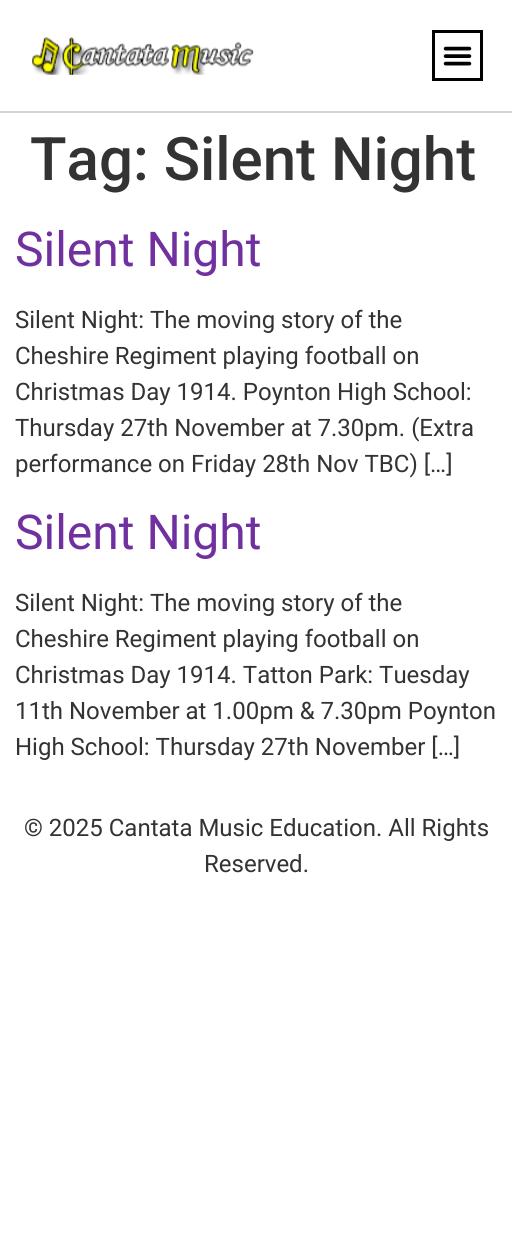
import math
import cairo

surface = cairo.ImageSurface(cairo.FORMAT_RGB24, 512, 1244)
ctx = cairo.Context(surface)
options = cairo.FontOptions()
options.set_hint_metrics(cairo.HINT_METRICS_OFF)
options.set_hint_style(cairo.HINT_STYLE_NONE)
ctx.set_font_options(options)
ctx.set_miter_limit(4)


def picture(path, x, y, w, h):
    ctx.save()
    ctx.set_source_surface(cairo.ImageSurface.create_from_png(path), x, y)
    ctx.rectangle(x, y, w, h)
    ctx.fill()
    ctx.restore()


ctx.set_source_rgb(1, 1, 1)
ctx.paint()
ctx.set_source_rgb(0.827, 0.827, 0.827)
ctx.rectangle(0, 111, 512, 2)
ctx.fill()
picture("img1.png", 32, 37, 222, 38)
ctx.rectangle(433.5, 31.5, 48, 48)
ctx.set_source_rgb(0, 0, 0)
ctx.set_line_width(3)
ctx.stroke()
picture("img2.png", 443, 46, 29, 20)
ctx.select_font_face("Roboto Medium")
ctx.set_font_size(60)
ctx.set_source_rgb(0.2, 0.2, 0.2)
ctx.move_to(30, 180)
ctx.show_text("Tag: Silent Night")
ctx.select_font_face("Roboto")
ctx.set_font_size(48)
ctx.set_source_rgb(0.439, 0.188, 0.627)
ctx.move_to(15, 266)
ctx.show_text("Silent Night")
ctx.set_font_size(24)
ctx.set_source_rgb(0.2, 0.2, 0.2)
ctx.move_to(15, 328)
ctx.show_text("Silent Night: The moving story of the")
ctx.move_to(15, 364)
ctx.show_text("Cheshire Regiment playing football on")
ctx.move_to(15, 400)
ctx.show_text("Christmas Day 1914. Poynton High School:")
ctx.move_to(15, 436)
ctx.show_text("Thursday 27th November at 7.30pm. (Extra")
ctx.move_to(15, 472)
ctx.show_text("performance on Friday 28th Nov TBC) […]")
ctx.set_font_size(48)
ctx.set_source_rgb(0.439, 0.188, 0.627)
ctx.move_to(15, 549)
ctx.show_text("Silent Night")
ctx.set_font_size(24)
ctx.set_source_rgb(0.2, 0.2, 0.2)
ctx.move_to(15, 611)
ctx.show_text("Silent Night: The moving story of the")
ctx.move_to(15, 647)
ctx.show_text("Cheshire Regiment playing football on")
ctx.move_to(15, 683)
ctx.show_text("Christmas Day 1914. Tatton Park: Tuesday")
ctx.move_to(15, 719)
ctx.show_text("11th November at 1.00pm & 7.30pm Poynton")
ctx.move_to(15, 755)
ctx.show_text("High School: Thursday 27th November […]")
ctx.move_to(24, 836)
ctx.show_text("© 2025 Cantata Music Education. All Rights")
ctx.move_to(204, 872)
ctx.show_text("Reserved.")
surface.write_to_png("page.png")
